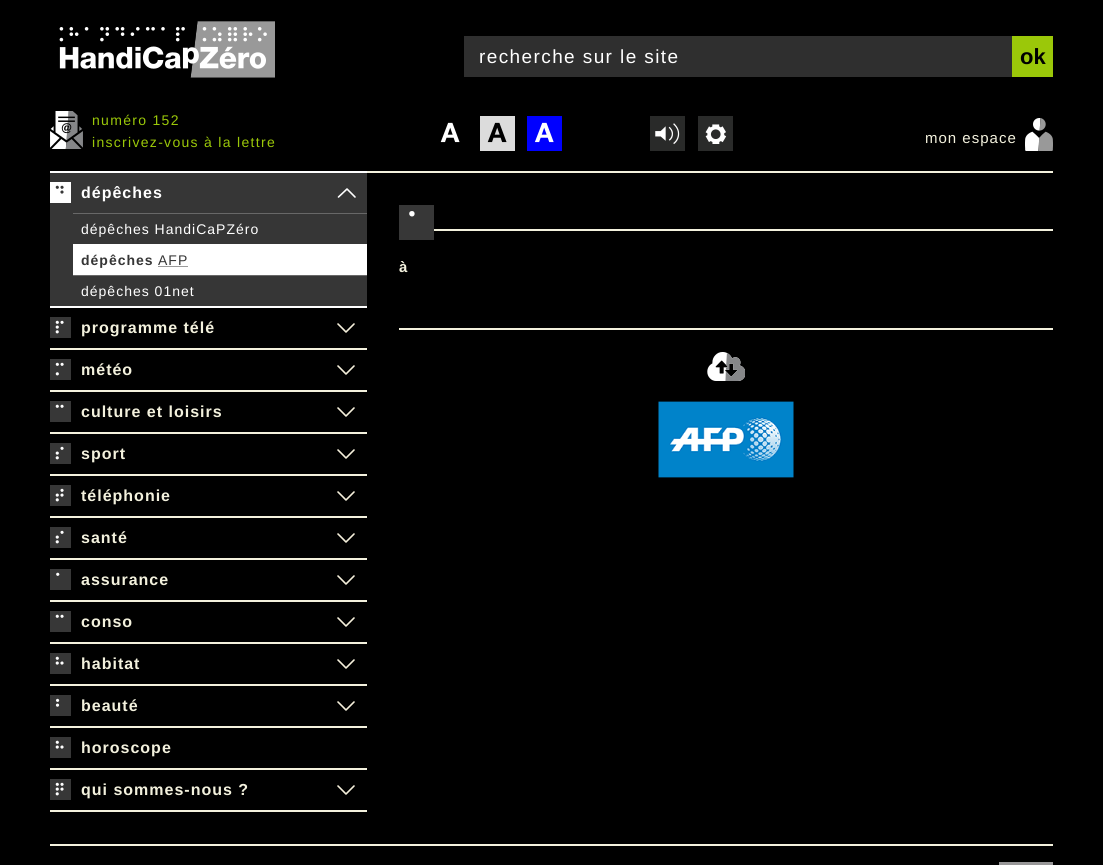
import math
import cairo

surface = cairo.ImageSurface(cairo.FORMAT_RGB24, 1103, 865)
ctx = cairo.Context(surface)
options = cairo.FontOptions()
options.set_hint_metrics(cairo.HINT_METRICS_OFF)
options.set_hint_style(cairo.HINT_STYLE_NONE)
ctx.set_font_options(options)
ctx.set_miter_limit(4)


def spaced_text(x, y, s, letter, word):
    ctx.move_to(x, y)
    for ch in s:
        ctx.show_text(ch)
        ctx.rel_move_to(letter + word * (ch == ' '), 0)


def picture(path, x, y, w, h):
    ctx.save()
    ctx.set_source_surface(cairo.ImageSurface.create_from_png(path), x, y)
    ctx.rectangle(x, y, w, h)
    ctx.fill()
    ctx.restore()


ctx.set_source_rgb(0, 0, 0)
ctx.paint()
ctx.set_source_rgb(0.953, 0.945, 0.867)
ctx.rectangle(367, 171, 686, 2)
ctx.fill()
picture("img1.png", 59, 21, 216, 57)
ctx.set_source_rgb(0.184, 0.184, 0.184)
ctx.rectangle(464, 36, 548, 41)
ctx.fill()
ctx.select_font_face("Liberation Sans")
ctx.set_font_size(19)
ctx.set_source_rgb(1, 1, 1)
spaced_text(479, 63, "recherche sur le site", 1.4, 0)
ctx.set_source_rgb(0.608, 0.784, 0.039)
ctx.rectangle(1012, 36, 41, 41)
ctx.fill()
ctx.select_font_face("Liberation Sans", cairo.FONT_SLANT_NORMAL, cairo.FONT_WEIGHT_BOLD)
ctx.set_font_size(22)
ctx.set_source_rgb(0, 0, 0)
ctx.move_to(1020, 64)
ctx.show_text("ok")
picture("img2.png", 50, 111, 33, 38)
ctx.select_font_face("Liberation Sans")
ctx.set_font_size(14)
ctx.set_source_rgb(0.608, 0.784, 0.039)
spaced_text(92, 125, "numéro 152", 1.3, 0)
spaced_text(92, 147, "inscrivez-vous à la lettre", 1.3, 0)
picture("img3.png", 440, 122, 20, 21)
picture("img4.png", 480, 116, 35, 35)
picture("img5.png", 527, 116, 35, 35)
picture("img6.png", 650, 116, 35, 35)
picture("img7.png", 698, 116, 35, 35)
ctx.set_font_size(15)
ctx.set_source_rgb(0.953, 0.945, 0.867)
spaced_text(925, 143, "mon espace", 1, 0)
picture("img8.png", 1025, 118, 28, 33)
ctx.set_source_rgb(0.212, 0.212, 0.212)
ctx.rectangle(50, 173, 317, 133)
ctx.fill()
ctx.set_source_rgb(1, 1, 1)
ctx.rectangle(50, 306, 317, 2)
ctx.fill()
ctx.rectangle(50, 171, 317, 2)
ctx.fill()
picture("img9.png", 50, 182, 21, 21)
ctx.select_font_face("Liberation Sans", cairo.FONT_SLANT_NORMAL, cairo.FONT_WEIGHT_BOLD)
ctx.set_font_size(16)
spaced_text(81, 198, "dépêches", 1, 0)
ctx.new_path()
ctx.move_to(338.5, 197)
ctx.line_to(347, 189)
ctx.line_to(355, 197)
ctx.set_line_width(1.6)
ctx.set_line_cap(cairo.LINE_CAP_ROUND)
ctx.set_line_join(cairo.LINE_JOIN_ROUND)
ctx.stroke()
ctx.set_source_rgb(0.408, 0.408, 0.408)
ctx.rectangle(73, 213, 294, 1)
ctx.fill()
ctx.select_font_face("Liberation Sans")
ctx.set_font_size(14)
ctx.set_source_rgb(1, 1, 1)
spaced_text(81, 234, "dépêches HandiCaPZéro", 1, 0)
ctx.rectangle(73, 244, 294, 31)
ctx.fill()
ctx.select_font_face("Liberation Sans", cairo.FONT_SLANT_NORMAL, cairo.FONT_WEIGHT_BOLD)
ctx.set_source_rgb(0.212, 0.212, 0.212)
spaced_text(81, 265, "dépêches", 1, 0)
ctx.select_font_face("Liberation Sans")
spaced_text(158, 265, "AFP", 1, 0)
ctx.new_path()
ctx.move_to(158.5, 266.5)
ctx.line_to(188.5, 266.5)
ctx.set_line_width(1)
ctx.set_line_cap(cairo.LINE_CAP_BUTT)
ctx.set_line_join(cairo.LINE_JOIN_MITER)
ctx.set_dash([1, 1])
ctx.stroke()
ctx.set_source_rgb(0.408, 0.408, 0.408)
ctx.rectangle(73, 275, 294, 1)
ctx.fill()
ctx.set_source_rgb(1, 1, 1)
spaced_text(81, 296, "dépêches 01net", 1, 0)
ctx.set_source_rgb(0.953, 0.945, 0.867)
ctx.rectangle(50, 348, 317, 2)
ctx.fill()
picture("img10.png", 50, 317, 21, 21)
ctx.select_font_face("Liberation Sans", cairo.FONT_SLANT_NORMAL, cairo.FONT_WEIGHT_BOLD)
ctx.set_font_size(16)
spaced_text(81, 333, "programme télé", 1, 0)
ctx.new_path()
ctx.move_to(354, 324)
ctx.line_to(346, 332)
ctx.line_to(338, 324)
ctx.move_to(354, 366)
ctx.line_to(346, 374)
ctx.line_to(338, 366)
ctx.set_source_rgb(0.961, 0.941, 0.863)
ctx.set_line_width(1.6)
ctx.set_line_cap(cairo.LINE_CAP_ROUND)
ctx.set_line_join(cairo.LINE_JOIN_ROUND)
ctx.set_dash([])
ctx.stroke()
ctx.set_source_rgb(0.953, 0.945, 0.867)
ctx.rectangle(50, 390, 317, 2)
ctx.fill()
picture("img11.png", 50, 359, 21, 21)
spaced_text(81, 375, "météo", 1, 0)
ctx.rectangle(50, 432, 317, 2)
ctx.fill()
picture("img12.png", 50, 401, 21, 21)
spaced_text(81, 417, "culture et loisirs", 1, 0)
ctx.new_path()
ctx.move_to(354, 408)
ctx.line_to(346, 416)
ctx.line_to(338, 408)
ctx.move_to(354, 450)
ctx.line_to(346, 458)
ctx.line_to(338, 450)
ctx.set_source_rgb(0.961, 0.941, 0.863)
ctx.stroke()
ctx.set_source_rgb(0.953, 0.945, 0.867)
ctx.rectangle(50, 474, 317, 2)
ctx.fill()
picture("img13.png", 50, 443, 21, 21)
spaced_text(81, 459, "sport", 1, 0)
ctx.rectangle(50, 516, 317, 2)
ctx.fill()
picture("img14.png", 50, 485, 21, 21)
spaced_text(81, 501, "téléphonie", 1, 0)
ctx.new_path()
ctx.move_to(354, 492)
ctx.line_to(346, 500)
ctx.line_to(338, 492)
ctx.move_to(354, 534)
ctx.line_to(346, 542)
ctx.line_to(338, 534)
ctx.set_source_rgb(0.961, 0.941, 0.863)
ctx.stroke()
ctx.set_source_rgb(0.953, 0.945, 0.867)
ctx.rectangle(50, 558, 317, 2)
ctx.fill()
picture("img13.png", 50, 527, 21, 21)
spaced_text(81, 543, "santé", 1, 0)
ctx.rectangle(50, 600, 317, 2)
ctx.fill()
picture("img15.png", 50, 569, 21, 21)
spaced_text(81, 585, "assurance", 1, 0)
ctx.new_path()
ctx.move_to(354, 576)
ctx.line_to(346, 584)
ctx.line_to(338, 576)
ctx.move_to(354, 618)
ctx.line_to(346, 626)
ctx.line_to(338, 618)
ctx.set_source_rgb(0.961, 0.941, 0.863)
ctx.stroke()
ctx.set_source_rgb(0.953, 0.945, 0.867)
ctx.rectangle(50, 642, 317, 2)
ctx.fill()
picture("img12.png", 50, 611, 21, 21)
spaced_text(81, 627, "conso", 1, 0)
ctx.rectangle(50, 684, 317, 2)
ctx.fill()
picture("img16.png", 50, 653, 21, 21)
spaced_text(81, 669, "habitat", 1, 0)
ctx.new_path()
ctx.move_to(354, 660)
ctx.line_to(346, 668)
ctx.line_to(338, 660)
ctx.move_to(354, 702)
ctx.line_to(346, 710)
ctx.line_to(338, 702)
ctx.set_source_rgb(0.961, 0.941, 0.863)
ctx.stroke()
ctx.set_source_rgb(0.953, 0.945, 0.867)
ctx.rectangle(50, 726, 317, 2)
ctx.fill()
picture("img17.png", 50, 695, 21, 21)
spaced_text(81, 711, "beauté", 1, 0)
ctx.rectangle(50, 768, 317, 2)
ctx.fill()
picture("img16.png", 50, 737, 21, 21)
spaced_text(81, 753, "horoscope", 1, 0)
ctx.rectangle(50, 810, 317, 2)
ctx.fill()
picture("img18.png", 50, 779, 21, 21)
spaced_text(81, 795, "qui sommes-nous ?", 1, 0)
ctx.new_path()
ctx.move_to(354, 786)
ctx.line_to(346, 794)
ctx.line_to(338, 786)
ctx.set_source_rgb(0.961, 0.941, 0.863)
ctx.stroke()
ctx.set_source_rgb(0.953, 0.945, 0.867)
ctx.rectangle(434, 229, 619, 2)
ctx.fill()
ctx.set_source_rgb(0.216, 0.216, 0.216)
ctx.rectangle(399, 205, 35, 35)
ctx.fill()
ctx.set_source_rgb(1, 1, 1)
ctx.new_path()
ctx.move_to(412, 211)
ctx.curve_to(415.5, 211, 415.5, 216.5, 412, 216.5)
ctx.curve_to(408.5, 216.5, 408, 211, 412, 211)
ctx.close_path()
ctx.fill()
ctx.set_font_size(15)
ctx.set_source_rgb(0.953, 0.945, 0.867)
spaced_text(399, 272, "à", 2, 0)
ctx.rectangle(399, 328, 654, 2)
ctx.fill()
picture("img19.png", 707, 352, 38, 29)
picture("img20.png", 658, 401, 136, 77)
ctx.rectangle(50, 844, 1003, 2)
ctx.fill()
ctx.set_source_rgb(0.596, 0.592, 0.596)
ctx.rectangle(999, 862, 54, 3)
ctx.fill()
surface.write_to_png("page.png")
